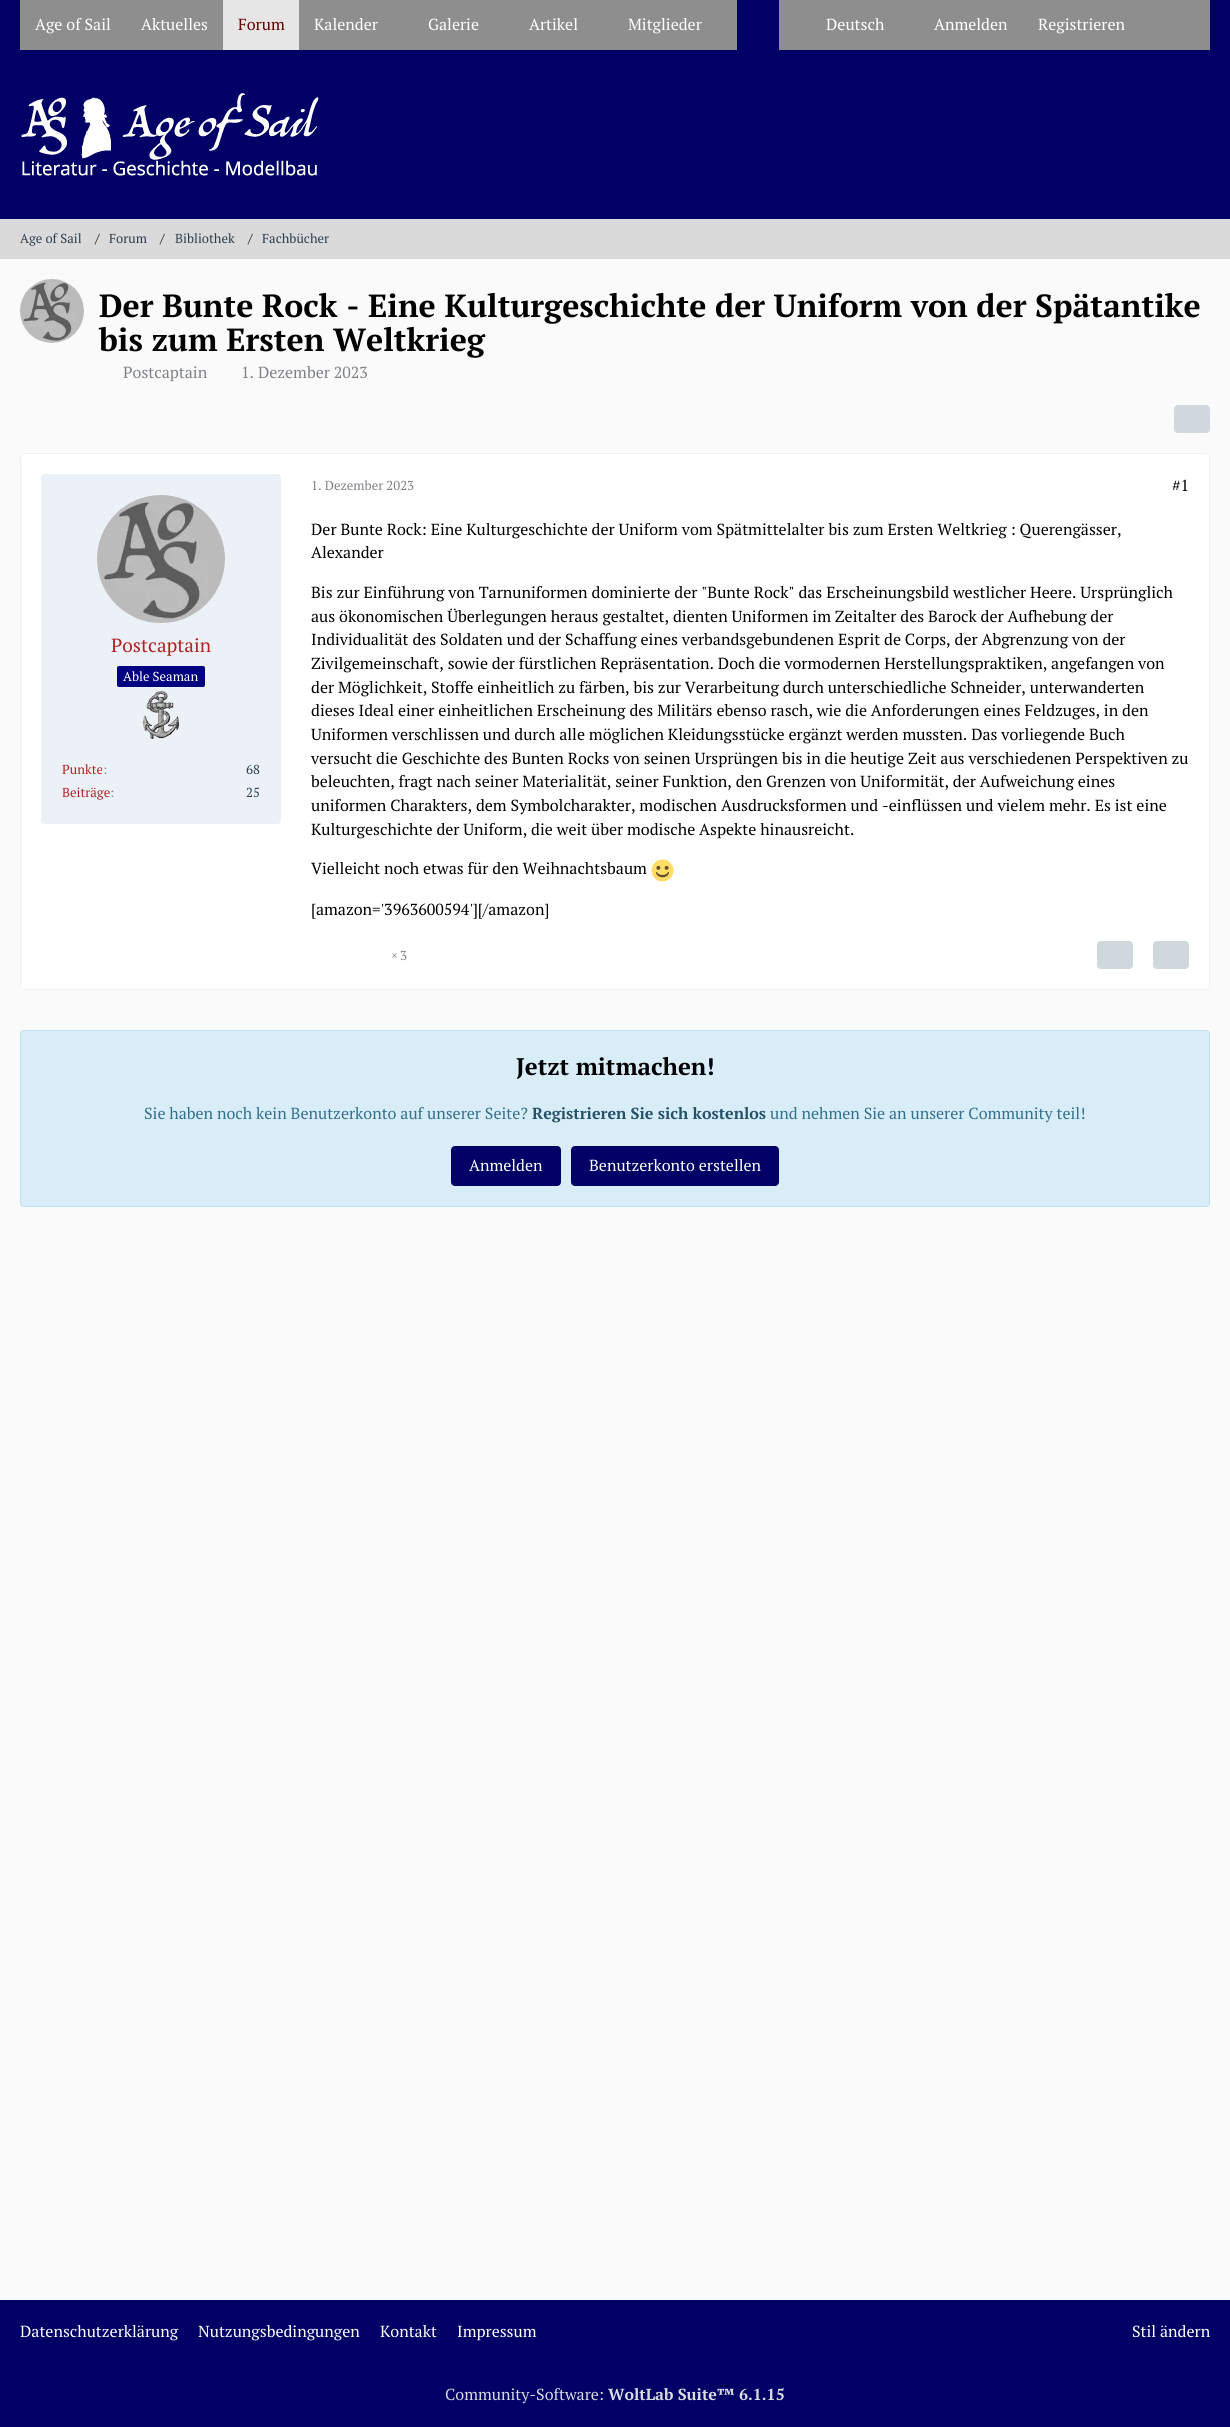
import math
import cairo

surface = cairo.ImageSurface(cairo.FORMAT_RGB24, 1230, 2427)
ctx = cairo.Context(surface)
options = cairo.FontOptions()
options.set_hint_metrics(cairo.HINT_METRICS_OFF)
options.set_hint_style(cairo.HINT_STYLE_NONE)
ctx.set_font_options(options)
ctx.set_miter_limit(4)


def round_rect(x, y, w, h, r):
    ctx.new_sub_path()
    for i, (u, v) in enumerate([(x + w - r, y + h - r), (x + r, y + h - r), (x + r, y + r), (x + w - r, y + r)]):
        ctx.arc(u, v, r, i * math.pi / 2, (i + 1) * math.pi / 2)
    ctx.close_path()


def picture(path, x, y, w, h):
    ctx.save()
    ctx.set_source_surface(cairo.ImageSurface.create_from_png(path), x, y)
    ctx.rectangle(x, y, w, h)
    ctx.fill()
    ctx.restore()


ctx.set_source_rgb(0.98, 0.98, 0.98)
ctx.paint()
ctx.set_source_rgb(0.004, 0, 0.4)
ctx.rectangle(0, 0, 1230, 219)
ctx.fill()
ctx.set_source_rgb(0.557, 0.557, 0.557)
ctx.rectangle(20, 0, 203, 50)
ctx.fill()
ctx.select_font_face("PT Serif")
ctx.set_font_size(16)
ctx.set_source_rgb(1, 1, 1)
ctx.move_to(35, 30)
ctx.show_text("Age of Sail")
ctx.move_to(141, 30)
ctx.show_text("Aktuelles")
ctx.set_source_rgb(0.902, 0.902, 0.902)
ctx.rectangle(223, 0, 76, 50)
ctx.fill()
ctx.set_source_rgb(0.4, 0, 0)
ctx.move_to(238, 30)
ctx.show_text("Forum")
ctx.set_source_rgb(0.557, 0.557, 0.557)
ctx.rectangle(299, 0, 438, 50)
ctx.fill()
ctx.set_source_rgb(1, 1, 1)
ctx.move_to(314, 30)
ctx.show_text("Kalender")
ctx.move_to(428, 30)
ctx.show_text("Galerie")
ctx.move_to(529, 30)
ctx.show_text("Artikel")
ctx.move_to(628, 30)
ctx.show_text("Mitglieder")
ctx.set_source_rgb(0.557, 0.557, 0.557)
ctx.rectangle(779, 0, 431, 50)
ctx.fill()
ctx.set_source_rgb(1, 1, 1)
ctx.move_to(826, 30)
ctx.show_text("Deutsch")
ctx.move_to(934, 30)
ctx.show_text("Anmelden")
ctx.move_to(1038, 30)
ctx.show_text("Registrieren")
picture("img1.png", 21, 93, 298, 83)
ctx.set_source_rgb(0.855, 0.855, 0.855)
ctx.rectangle(0, 219, 1230, 40)
ctx.fill()
ctx.set_font_size(13)
ctx.set_source_rgb(0.173, 0.243, 0.314)
ctx.move_to(20, 243)
ctx.show_text("Age of Sail")
ctx.set_source_rgb(0, 0, 0)
ctx.move_to(95, 243)
ctx.show_text("/")
ctx.set_source_rgb(0.173, 0.243, 0.314)
ctx.move_to(109, 243)
ctx.show_text("Forum")
ctx.set_source_rgb(0, 0, 0)
ctx.move_to(160, 243)
ctx.show_text("/")
ctx.set_source_rgb(0.173, 0.243, 0.314)
ctx.move_to(175, 243)
ctx.show_text("Bibliothek")
ctx.set_source_rgb(0, 0, 0)
ctx.move_to(248, 243)
ctx.show_text("/")
ctx.set_source_rgb(0.173, 0.243, 0.314)
ctx.move_to(262, 243)
ctx.show_text("Fachbücher")
ctx.set_source_rgb(1, 1, 1)
ctx.new_path()
ctx.arc(52, 311, 32, 0, 2 * math.pi)
ctx.fill()
picture("img2.png", 20, 279, 64, 64)
ctx.select_font_face("PT Serif", cairo.FONT_SLANT_NORMAL, cairo.FONT_WEIGHT_BOLD)
ctx.set_font_size(32)
ctx.set_source_rgb(0, 0, 0)
ctx.move_to(99, 317)
ctx.show_text("Der Bunte Rock - Eine Kulturgeschichte der Uniform von der Spätantike")
ctx.move_to(99, 351)
ctx.show_text("bis zum Ersten Weltkrieg")
ctx.select_font_face("PT Serif")
ctx.set_font_size(16)
ctx.set_source_rgb(0.49, 0.51, 0.529)
ctx.move_to(123, 378)
ctx.show_text("Postcaptain")
ctx.move_to(241, 378)
ctx.show_text("1. Dezember 2023")
ctx.set_source_rgb(0.812, 0.847, 0.863)
round_rect(1174, 405, 36, 28, 4)
ctx.fill()
ctx.set_source_rgb(1, 1, 1)
round_rect(20.5, 453.5, 1189, 536, 3.5)
ctx.fill_preserve()
ctx.set_source_rgb(0.925, 0.945, 0.969)
ctx.set_line_width(1)
ctx.stroke()
round_rect(41, 474, 240, 350, 4)
ctx.fill()
ctx.set_source_rgb(1, 1, 1)
ctx.arc(161, 559, 64, 0, 2 * math.pi)
ctx.fill()
picture("img3.png", 97, 495, 128, 128)
ctx.set_font_size(19)
ctx.set_source_rgb(0.698, 0.133, 0.133)
ctx.move_to(111, 652)
ctx.show_text("Postcaptain")
ctx.set_source_rgb(0, 0, 0.502)
round_rect(117, 666, 88, 21, 2)
ctx.fill()
ctx.set_font_size(13)
ctx.set_source_rgb(1, 1, 1)
ctx.move_to(123, 681)
ctx.show_text("Able Seaman")
picture("img4.png", 143, 691, 36, 48)
ctx.set_source_rgb(0.698, 0.133, 0.133)
ctx.move_to(62, 774)
ctx.show_text("Punkte")
ctx.set_source_rgb(0.498, 0.549, 0.553)
ctx.move_to(103, 774)
ctx.show_text(":")
ctx.set_source_rgb(0.173, 0.243, 0.314)
ctx.move_to(246, 774)
ctx.show_text("68")
ctx.set_source_rgb(0.698, 0.133, 0.133)
ctx.move_to(62, 797)
ctx.show_text("Beiträge")
ctx.set_source_rgb(0.498, 0.549, 0.553)
ctx.move_to(110, 797)
ctx.show_text(":")
ctx.set_source_rgb(0.173, 0.243, 0.314)
ctx.move_to(246, 797)
ctx.show_text("25")
ctx.set_source_rgb(0.49, 0.51, 0.529)
ctx.move_to(311, 490)
ctx.show_text("1. Dezember 2023")
ctx.set_font_size(16)
ctx.set_source_rgb(0, 0, 0)
ctx.move_to(1172, 491)
ctx.show_text("#1")
ctx.move_to(311, 535)
ctx.show_text("Der Bunte Rock: Eine Kulturgeschichte der Uniform vom Spätmittelalter bis zum Ersten Weltkrieg : Querengässer,")
ctx.move_to(311, 558)
ctx.show_text("Alexander")
ctx.move_to(311, 598)
ctx.show_text("Bis zur Einführung von Tarnuniformen dominierte der \"Bunte Rock\" das Erscheinungsbild westlicher Heere. Ursprünglich")
ctx.move_to(311, 622)
ctx.show_text("aus ökonomischen Überlegungen heraus gestaltet, dienten Uniformen im Zeitalter des Barock der Aufhebung der")
ctx.move_to(311, 645)
ctx.show_text("Individualität des Soldaten und der Schaffung eines verbandsgebundenen Esprit de Corps, der Abgrenzung von der")
ctx.move_to(311, 669)
ctx.show_text("Zivilgemeinschaft, sowie der fürstlichen Repräsentation. Doch die vormodernen Herstellungspraktiken, angefangen von")
ctx.move_to(311, 693)
ctx.show_text("der Möglichkeit, Stoffe einheitlich zu färben, bis zur Verarbeitung durch unterschiedliche Schneider, unterwanderten")
ctx.move_to(311, 716)
ctx.show_text("dieses Ideal einer einheitlichen Erscheinung des Militärs ebenso rasch, wie die Anforderungen eines Feldzuges, in den")
ctx.move_to(311, 740)
ctx.show_text("Uniformen verschlissen und durch alle möglichen Kleidungsstücke ergänzt werden mussten. Das vorliegende Buch")
ctx.move_to(311, 764)
ctx.show_text("versucht die Geschichte des Bunten Rocks von seinen Ursprüngen bis in die heutige Zeit aus verschiedenen Perspektiven zu")
ctx.move_to(311, 787)
ctx.show_text("beleuchten, fragt nach seiner Materialität, seiner Funktion, den Grenzen von Uniformität, der Aufweichung eines")
ctx.move_to(311, 811)
ctx.show_text("uniformen Charakters, dem Symbolcharakter, modischen Ausdrucksformen und -einflüssen und vielem mehr. Es ist eine")
ctx.move_to(311, 835)
ctx.show_text("Kulturgeschichte der Uniform, die weit über modische Aspekte hinausreicht.")
ctx.move_to(311, 874)
ctx.show_text("Vielleicht noch etwas für den Weihnachtsbaum")
picture("img5.png", 651, 859, 23, 23)
ctx.move_to(311, 915)
ctx.show_text("[amazon='3963600594'][/amazon]")
ctx.set_font_size(13)
ctx.set_source_rgb(0.49, 0.51, 0.529)
ctx.move_to(391, 960)
ctx.show_text("×")
ctx.move_to(400, 960)
ctx.show_text("3")
ctx.set_source_rgb(0.812, 0.847, 0.863)
round_rect(1097, 941, 36, 28, 4)
ctx.fill()
round_rect(1153, 941, 36, 28, 4)
ctx.fill()
ctx.set_source_rgb(0.851, 0.929, 0.969)
round_rect(20.5, 1030.5, 1189, 176, 3.5)
ctx.fill_preserve()
ctx.set_source_rgb(0.737, 0.875, 0.945)
ctx.stroke()
ctx.select_font_face("PT Serif", cairo.FONT_SLANT_NORMAL, cairo.FONT_WEIGHT_BOLD)
ctx.set_font_size(24)
ctx.set_source_rgb(0, 0, 0)
ctx.move_to(516, 1075)
ctx.show_text("Jetzt mitmachen!")
ctx.select_font_face("PT Serif")
ctx.set_font_size(16)
ctx.set_source_rgb(0.192, 0.439, 0.561)
ctx.move_to(144, 1119)
ctx.show_text("Sie haben noch kein Benutzerkonto auf unserer Seite?")
ctx.select_font_face("PT Serif", cairo.FONT_SLANT_NORMAL, cairo.FONT_WEIGHT_BOLD)
ctx.set_source_rgb(0.141, 0.322, 0.412)
ctx.move_to(532, 1119)
ctx.show_text("Registrieren Sie sich kostenlos")
ctx.select_font_face("PT Serif")
ctx.set_source_rgb(0.192, 0.439, 0.561)
ctx.move_to(770, 1119)
ctx.show_text("und nehmen Sie an unserer Community teil!")
ctx.set_source_rgb(0.004, 0, 0.4)
round_rect(451, 1146, 110, 40, 4)
ctx.fill()
ctx.set_source_rgb(1, 1, 1)
ctx.move_to(469, 1171)
ctx.show_text("Anmelden")
ctx.set_source_rgb(0.004, 0, 0.4)
round_rect(571, 1146, 208, 40, 4)
ctx.fill()
ctx.set_source_rgb(1, 1, 1)
ctx.move_to(589, 1171)
ctx.show_text("Benutzerkonto erstellen")
ctx.set_source_rgb(0.004, 0, 0.4)
ctx.rectangle(0, 2300, 1230, 127)
ctx.fill()
ctx.set_source_rgb(1, 1, 1)
ctx.move_to(20, 2337)
ctx.show_text("Datenschutzerklärung")
ctx.move_to(198, 2337)
ctx.show_text("Nutzungsbedingungen")
ctx.move_to(380, 2337)
ctx.show_text("Kontakt")
ctx.move_to(457, 2337)
ctx.show_text("Impressum")
ctx.move_to(1132, 2337)
ctx.show_text("Stil ändern")
ctx.set_source_rgb(0.851, 0.863, 0.871)
ctx.move_to(445, 2400)
ctx.show_text("Community-Software:")
ctx.select_font_face("PT Serif", cairo.FONT_SLANT_NORMAL, cairo.FONT_WEIGHT_BOLD)
ctx.move_to(608, 2400)
ctx.show_text("WoltLab Suite™ 6.1.15")
surface.write_to_png("page.png")
